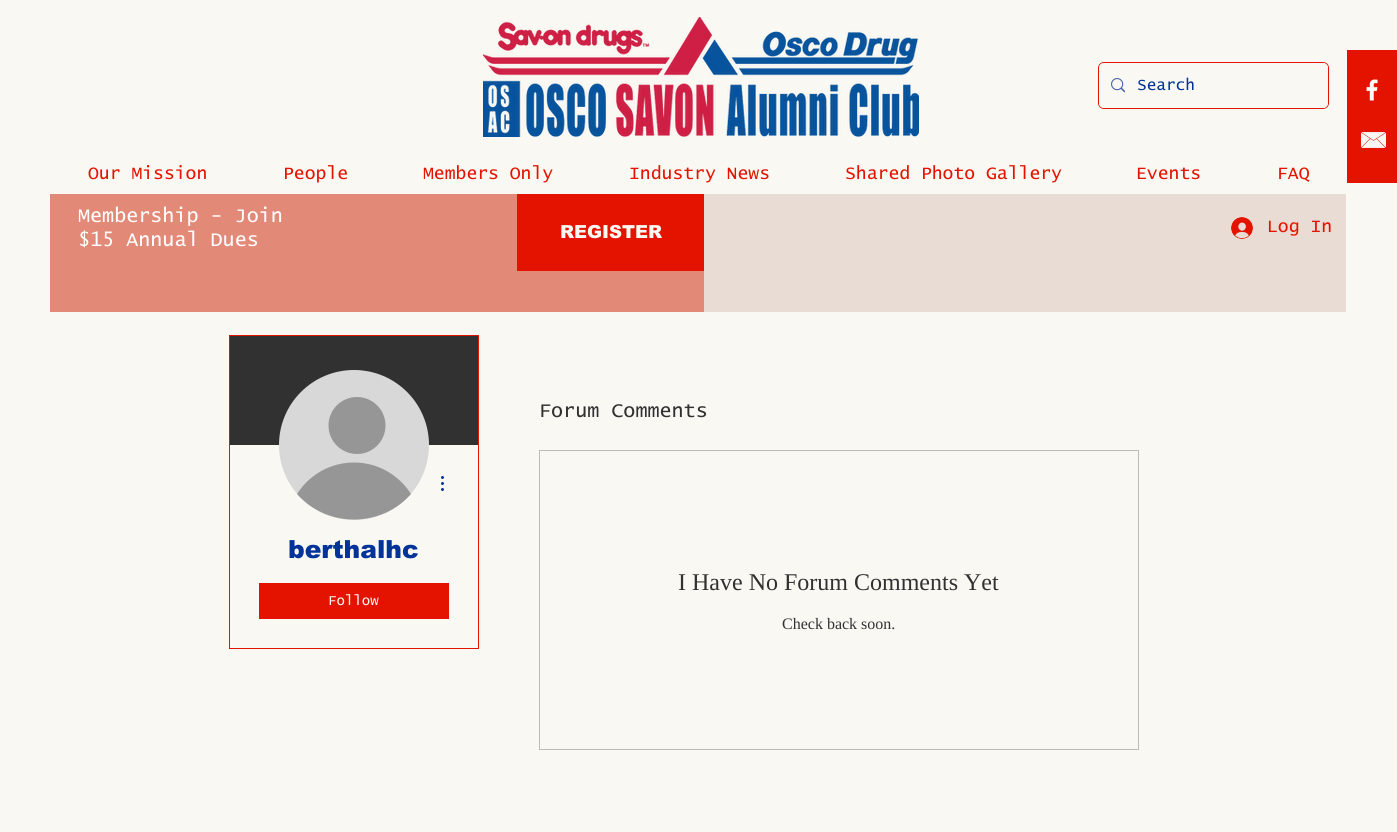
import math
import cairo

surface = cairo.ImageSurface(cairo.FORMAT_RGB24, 1397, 832)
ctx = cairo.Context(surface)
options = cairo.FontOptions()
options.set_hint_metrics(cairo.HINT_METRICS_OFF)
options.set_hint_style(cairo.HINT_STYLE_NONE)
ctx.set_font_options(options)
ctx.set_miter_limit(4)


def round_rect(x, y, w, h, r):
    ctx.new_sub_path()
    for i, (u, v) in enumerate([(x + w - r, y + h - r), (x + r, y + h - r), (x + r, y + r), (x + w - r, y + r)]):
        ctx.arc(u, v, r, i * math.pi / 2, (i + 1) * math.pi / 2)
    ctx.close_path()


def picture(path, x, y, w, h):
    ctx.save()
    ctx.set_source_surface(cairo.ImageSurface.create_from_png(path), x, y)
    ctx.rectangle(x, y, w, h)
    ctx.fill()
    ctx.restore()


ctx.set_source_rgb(0.973, 0.969, 0.953)
ctx.paint()
picture("img1.png", 483, 17, 436, 120)
round_rect(1098.5, 62.5, 230, 46, 5.5)
ctx.set_source_rgb(0.894, 0.075, 0)
ctx.set_line_width(1)
ctx.stroke()
ctx.set_source_rgb(0.973, 0.969, 0.953)
round_rect(1099, 63, 229, 45, 5)
ctx.fill()
picture("img2.png", 1111, 78, 14, 15)
ctx.select_font_face("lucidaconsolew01")
ctx.set_font_size(16)
ctx.set_source_rgb(0.004, 0.2, 0.6)
ctx.move_to(1137, 90)
ctx.show_text("Search")
ctx.set_font_size(18)
ctx.set_source_rgb(0.894, 0.075, 0)
ctx.move_to(88, 179)
ctx.show_text("Our Mission")
ctx.move_to(283, 179)
ctx.show_text("People")
ctx.move_to(423, 179)
ctx.show_text("Members Only")
ctx.move_to(629, 179)
ctx.show_text("Industry News")
ctx.move_to(845, 179)
ctx.show_text("Shared Photo Gallery")
ctx.move_to(1136, 179)
ctx.show_text("Events")
ctx.move_to(1277, 179)
ctx.show_text("FAQ")
ctx.set_source_rgb(0.91, 0.863, 0.835)
ctx.rectangle(704, 194, 642, 118)
ctx.fill()
ctx.set_source_rgb(0.89, 0.537, 0.471)
ctx.rectangle(50, 194, 654, 118)
ctx.fill()
ctx.set_font_size(20)
ctx.set_source_rgb(1, 1, 1)
ctx.move_to(78, 222)
ctx.show_text("Membership - Join")
ctx.move_to(78, 246)
ctx.show_text("$15 Annual Dues")
ctx.set_source_rgb(0.894, 0.075, 0)
ctx.rectangle(517, 194, 187, 77)
ctx.fill()
ctx.select_font_face("arial Black")
ctx.set_font_size(18)
ctx.set_source_rgb(0.973, 0.969, 0.953)
ctx.move_to(560, 238)
ctx.show_text("REGISTER")
picture("img3.png", 1231, 217, 22, 22)
ctx.select_font_face("lucidaconsolew01")
ctx.set_source_rgb(0.894, 0.075, 0)
ctx.move_to(1267, 232)
ctx.show_text("Log In")
ctx.rectangle(1347, 50, 50, 133)
ctx.fill()
picture("img4.png", 1366, 79, 12, 22)
picture("img5.png", 1361, 132, 25, 16)
ctx.set_source_rgb(0.196, 0.192, 0.192)
ctx.rectangle(230, 336, 248, 109)
ctx.fill()
ctx.rectangle(229.5, 335.5, 249, 313)
ctx.set_source_rgb(0.894, 0.075, 0)
ctx.stroke()
ctx.set_source_rgb(0.847, 0.847, 0.847)
ctx.arc(354, 445, 75, 0, 2 * math.pi)
ctx.fill()
ctx.set_source_rgb(0.588, 0.588, 0.588)
ctx.arc(357, 425.5, 28.5, 0, 2 * math.pi)
ctx.fill()
ctx.new_path()
ctx.move_to(411, 494)
ctx.curve_to(381, 528, 327, 528, 297, 494)
ctx.curve_to(324, 452, 384, 452, 411, 494)
ctx.close_path()
ctx.fill()
picture("img6.png", 441, 476, 3, 15)
ctx.select_font_face("arial Black")
ctx.set_font_size(25)
ctx.set_source_rgb(0.004, 0.2, 0.6)
ctx.move_to(288, 558)
ctx.show_text("berthalhc")
ctx.set_source_rgb(0.894, 0.075, 0)
ctx.rectangle(259, 583, 190, 36)
ctx.fill()
ctx.select_font_face("lucidaconsolew01")
ctx.set_font_size(14)
ctx.set_source_rgb(0.973, 0.969, 0.953)
ctx.move_to(328, 605)
ctx.show_text("Follow")
ctx.set_font_size(20)
ctx.set_source_rgb(0.196, 0.192, 0.192)
ctx.move_to(539, 417)
ctx.show_text("Forum Comments")
ctx.rectangle(539.5, 450.5, 599, 299)
ctx.set_source_rgb(0.741, 0.737, 0.725)
ctx.stroke()
ctx.select_font_face("Liberation Serif")
ctx.set_font_size(24)
ctx.set_source_rgb(0.196, 0.192, 0.192)
ctx.move_to(678, 590)
ctx.show_text("I Have No Forum Comments Yet")
ctx.set_font_size(16)
ctx.move_to(782, 629)
ctx.show_text("Check back soon.")
surface.write_to_png("page.png")
